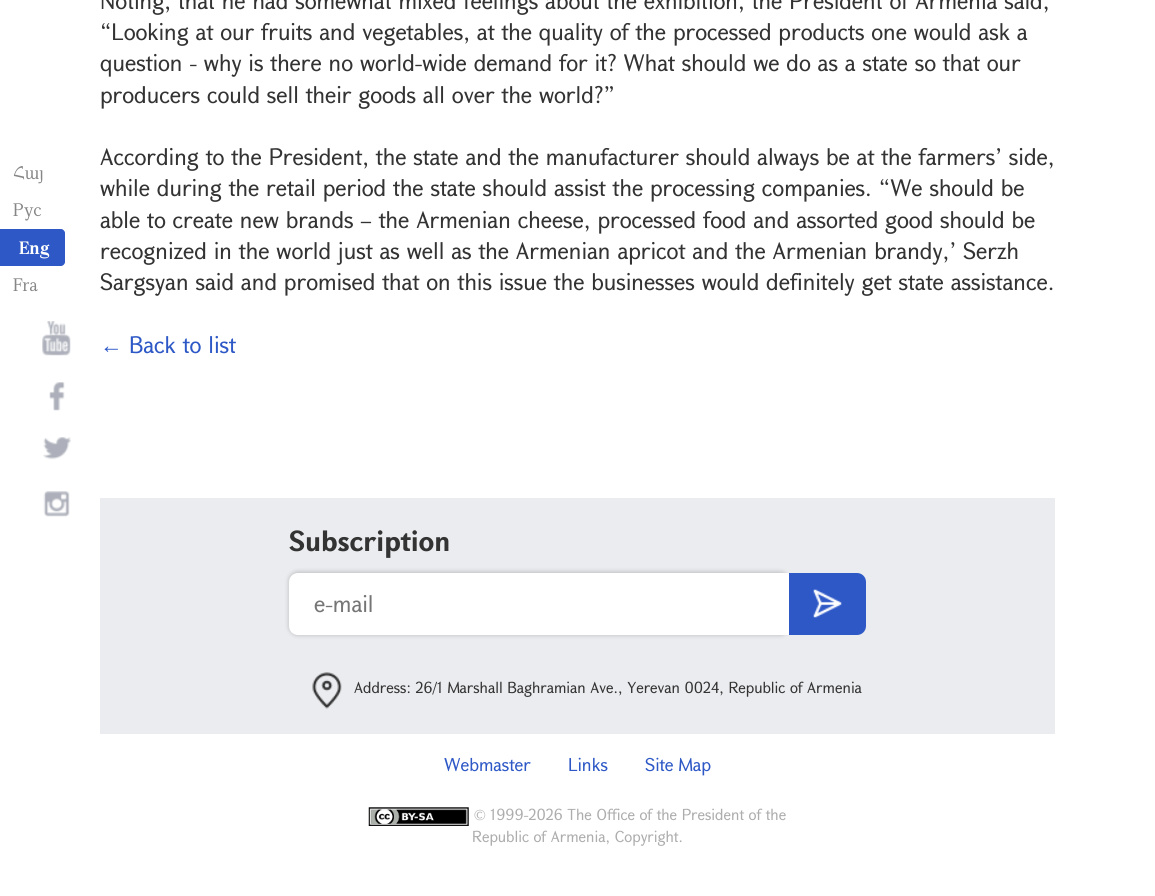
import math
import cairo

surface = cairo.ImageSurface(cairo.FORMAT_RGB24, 1155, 896)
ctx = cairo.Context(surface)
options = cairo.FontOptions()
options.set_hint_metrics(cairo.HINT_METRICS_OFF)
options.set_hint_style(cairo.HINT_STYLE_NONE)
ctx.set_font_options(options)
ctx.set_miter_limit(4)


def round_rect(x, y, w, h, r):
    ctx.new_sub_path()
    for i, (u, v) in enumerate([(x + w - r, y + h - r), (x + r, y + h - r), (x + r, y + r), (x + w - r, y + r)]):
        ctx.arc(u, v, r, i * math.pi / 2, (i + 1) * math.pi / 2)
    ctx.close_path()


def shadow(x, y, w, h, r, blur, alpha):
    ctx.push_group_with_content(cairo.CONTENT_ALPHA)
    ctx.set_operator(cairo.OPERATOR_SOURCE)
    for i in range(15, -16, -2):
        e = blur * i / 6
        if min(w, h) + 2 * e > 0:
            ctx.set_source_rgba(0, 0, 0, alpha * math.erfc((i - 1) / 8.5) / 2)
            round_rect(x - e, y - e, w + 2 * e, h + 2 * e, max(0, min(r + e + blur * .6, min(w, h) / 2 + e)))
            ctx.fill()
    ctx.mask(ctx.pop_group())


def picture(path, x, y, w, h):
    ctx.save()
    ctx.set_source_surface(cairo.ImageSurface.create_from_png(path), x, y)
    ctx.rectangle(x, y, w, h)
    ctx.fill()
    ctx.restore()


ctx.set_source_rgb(1, 1, 1)
ctx.paint()
ctx.select_font_face("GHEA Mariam")
ctx.set_font_size(17.5)
ctx.set_source_rgb(0.525, 0.525, 0.525)
ctx.move_to(13, 179)
ctx.show_text("Հայ")
ctx.move_to(13, 216)
ctx.show_text("Рус")
ctx.set_source_rgb(0.176, 0.345, 0.776)
ctx.new_path()
ctx.move_to(0, 229)
ctx.line_to(61, 229)
ctx.curve_to(63, 229, 65, 231, 65, 233)
ctx.line_to(65, 262)
ctx.curve_to(65, 264, 63, 266, 61, 266)
ctx.line_to(0, 266)
ctx.close_path()
ctx.fill()
ctx.select_font_face("GHEA Mariam", cairo.FONT_SLANT_NORMAL, cairo.FONT_WEIGHT_BOLD)
ctx.set_source_rgb(1, 1, 1)
ctx.move_to(19, 254)
ctx.show_text("Eng")
ctx.select_font_face("GHEA Mariam")
ctx.set_source_rgb(0.525, 0.525, 0.525)
ctx.move_to(13, 291)
ctx.show_text("Fra")
ctx.select_font_face("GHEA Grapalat")
ctx.set_font_size(22.5)
ctx.set_source_rgb(0.2, 0.2, 0.2)
ctx.move_to(100, 9)
ctx.show_text("Noting, that he had somewhat mixed feelings about the exhibition, the President of Armenia said,")
ctx.move_to(100, 40)
ctx.show_text("“Looking at our fruits and vegetables, at the quality of the processed products one would ask a")
ctx.move_to(100, 71)
ctx.show_text("question - why is there no world-wide demand for it? What should we do as a state so that our")
ctx.move_to(100, 103)
ctx.show_text("producers could sell their goods all over the world?”")
ctx.move_to(100, 165)
ctx.show_text("According to the President, the state and the manufacturer should always be at the farmers’ side,")
ctx.move_to(100, 196)
ctx.show_text("while during the retail period the state should assist the processing companies. “We should be")
ctx.move_to(100, 228)
ctx.show_text("able to create new brands – the Armenian cheese, processed food and assorted good should be")
ctx.move_to(100, 259)
ctx.show_text("recognized in the world just as well as the Armenian apricot and the Armenian brandy,’ Serzh")
ctx.move_to(100, 290)
ctx.show_text("Sargsyan said and promised that on this issue the businesses would definitely get state assistance.")
ctx.select_font_face("Liberation Sans")
ctx.set_source_rgb(0.176, 0.345, 0.776)
ctx.move_to(100, 353)
ctx.show_text("←")
ctx.select_font_face("GHEA Grapalat")
ctx.move_to(129, 353)
ctx.show_text("Back to list")
picture("img1.png", 42, 321, 29, 35)
picture("img2.png", 49, 382, 16, 29)
picture("img3.png", 43, 437, 28, 23)
picture("img4.png", 43, 491, 27, 26)
ctx.set_source_rgb(0.918, 0.922, 0.937)
ctx.rectangle(100, 498, 955, 236)
ctx.fill()
ctx.select_font_face("GHEA Grapalat", cairo.FONT_SLANT_NORMAL, cairo.FONT_WEIGHT_BOLD)
ctx.set_font_size(27.5)
ctx.set_source_rgb(0.2, 0.2, 0.2)
ctx.move_to(289, 551)
ctx.show_text("Subscription")
ctx.set_source_rgb(0, 0, 0)
shadow(288, 571, 502, 65, 10, 2, 0.15)
ctx.set_source_rgb(1, 1, 1)
ctx.new_path()
ctx.move_to(298, 573)
ctx.line_to(789, 573)
ctx.line_to(789, 635)
ctx.line_to(298, 635)
ctx.curve_to(293, 635, 289, 631, 289, 626)
ctx.line_to(289, 582)
ctx.curve_to(289, 577, 293, 573, 298, 573)
ctx.close_path()
ctx.fill()
ctx.select_font_face("GHEA Grapalat")
ctx.set_font_size(22.5)
ctx.set_source_rgb(0.459, 0.459, 0.459)
ctx.move_to(314, 612)
ctx.show_text("e-mail")
ctx.set_source_rgb(0.176, 0.345, 0.776)
ctx.new_path()
ctx.move_to(789, 573)
ctx.line_to(857, 573)
ctx.curve_to(862, 573, 866, 577, 866, 582)
ctx.line_to(866, 626)
ctx.curve_to(866, 631, 862, 635, 857, 635)
ctx.line_to(789, 635)
ctx.close_path()
ctx.fill()
picture("img5.png", 813, 589, 29, 29)
picture("img6.png", 312, 672, 30, 37)
ctx.set_font_size(15)
ctx.set_source_rgb(0.2, 0.2, 0.2)
ctx.move_to(354, 693)
ctx.show_text("Address: 26/1 Marshall Baghramian Ave., Yerevan 0024, Republic of Armenia")
ctx.set_font_size(17.5)
ctx.set_source_rgb(0.176, 0.345, 0.776)
ctx.move_to(444, 771)
ctx.show_text("Webmaster")
ctx.move_to(568, 771)
ctx.show_text("Links")
ctx.move_to(645, 771)
ctx.show_text("Site Map")
picture("img7.png", 368, 807, 101, 19)
ctx.set_font_size(15)
ctx.set_source_rgb(0.678, 0.678, 0.678)
ctx.move_to(474, 820)
ctx.show_text("© 1999-2026 The Office of the President of the")
ctx.move_to(472, 842)
ctx.show_text("Republic of Armenia, Copyright.")
surface.write_to_png("page.png")
